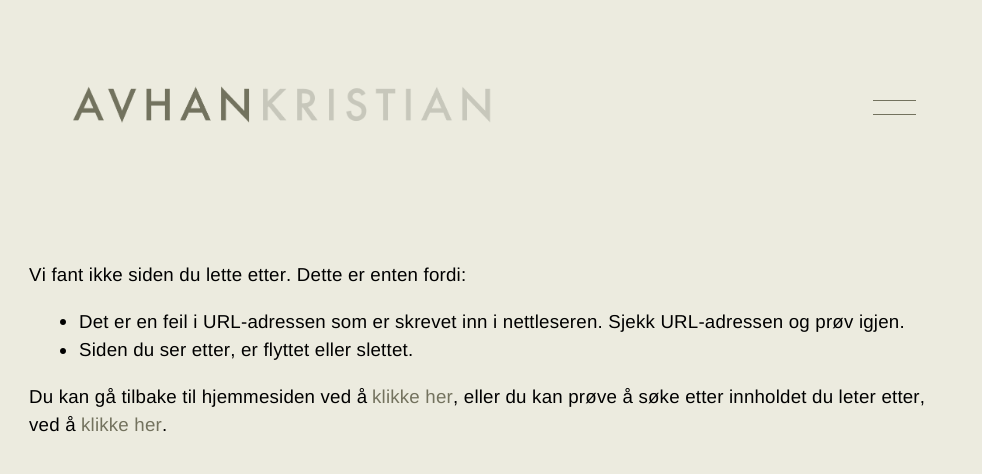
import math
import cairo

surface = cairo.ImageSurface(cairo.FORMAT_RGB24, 982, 474)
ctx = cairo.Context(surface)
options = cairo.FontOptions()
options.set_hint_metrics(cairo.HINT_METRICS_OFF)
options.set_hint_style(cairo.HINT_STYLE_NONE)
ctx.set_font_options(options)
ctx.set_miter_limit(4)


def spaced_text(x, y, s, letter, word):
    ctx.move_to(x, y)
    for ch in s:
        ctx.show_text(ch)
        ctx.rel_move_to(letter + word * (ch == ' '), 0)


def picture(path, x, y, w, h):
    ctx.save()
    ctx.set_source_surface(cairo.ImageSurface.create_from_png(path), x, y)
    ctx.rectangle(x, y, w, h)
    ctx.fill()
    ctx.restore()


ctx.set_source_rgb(0.922, 0.918, 0.875)
ctx.paint()
picture("img1.png", 73, 86, 418, 37)
ctx.set_source_rgb(0.451, 0.447, 0.369)
ctx.rectangle(873, 100, 43, 1)
ctx.fill()
ctx.rectangle(873, 114, 43, 1)
ctx.fill()
ctx.select_font_face("Liberation Sans")
ctx.set_font_size(18.7)
ctx.set_source_rgb(0, 0, 0)
spaced_text(29, 281, "Vi fant ikke siden du lette etter. Dette er enten fordi:", 0.2, 0)
ctx.new_path()
ctx.arc(63, 322, 3, 0, 2 * math.pi)
ctx.fill()
spaced_text(79, 328, "Det er en feil i URL-adressen som er skrevet inn i nettleseren. Sjekk URL-adressen og prøv igjen.", 0.2, 0)
ctx.new_path()
ctx.arc(63, 351, 3, 0, 2 * math.pi)
ctx.fill()
spaced_text(79, 356, "Siden du ser etter, er flyttet eller slettet.", 0.2, 0)
spaced_text(29, 403, "Du kan gå tilbake til hjemmesiden ved å", 0.2, 0)
ctx.set_source_rgb(0.451, 0.447, 0.369)
spaced_text(372, 403, "klikke her", 0.2, 0)
ctx.set_source_rgb(0, 0, 0)
spaced_text(453, 403, ", eller du kan prøve å søke etter innholdet du leter etter,", 0.2, 0)
spaced_text(29, 431, "ved å", 0.2, 0)
ctx.set_source_rgb(0.451, 0.447, 0.369)
spaced_text(81, 431, "klikke her", 0.2, 0)
ctx.set_source_rgb(0, 0, 0)
spaced_text(162, 431, ".", 0.2, 0)
surface.write_to_png("page.png")
